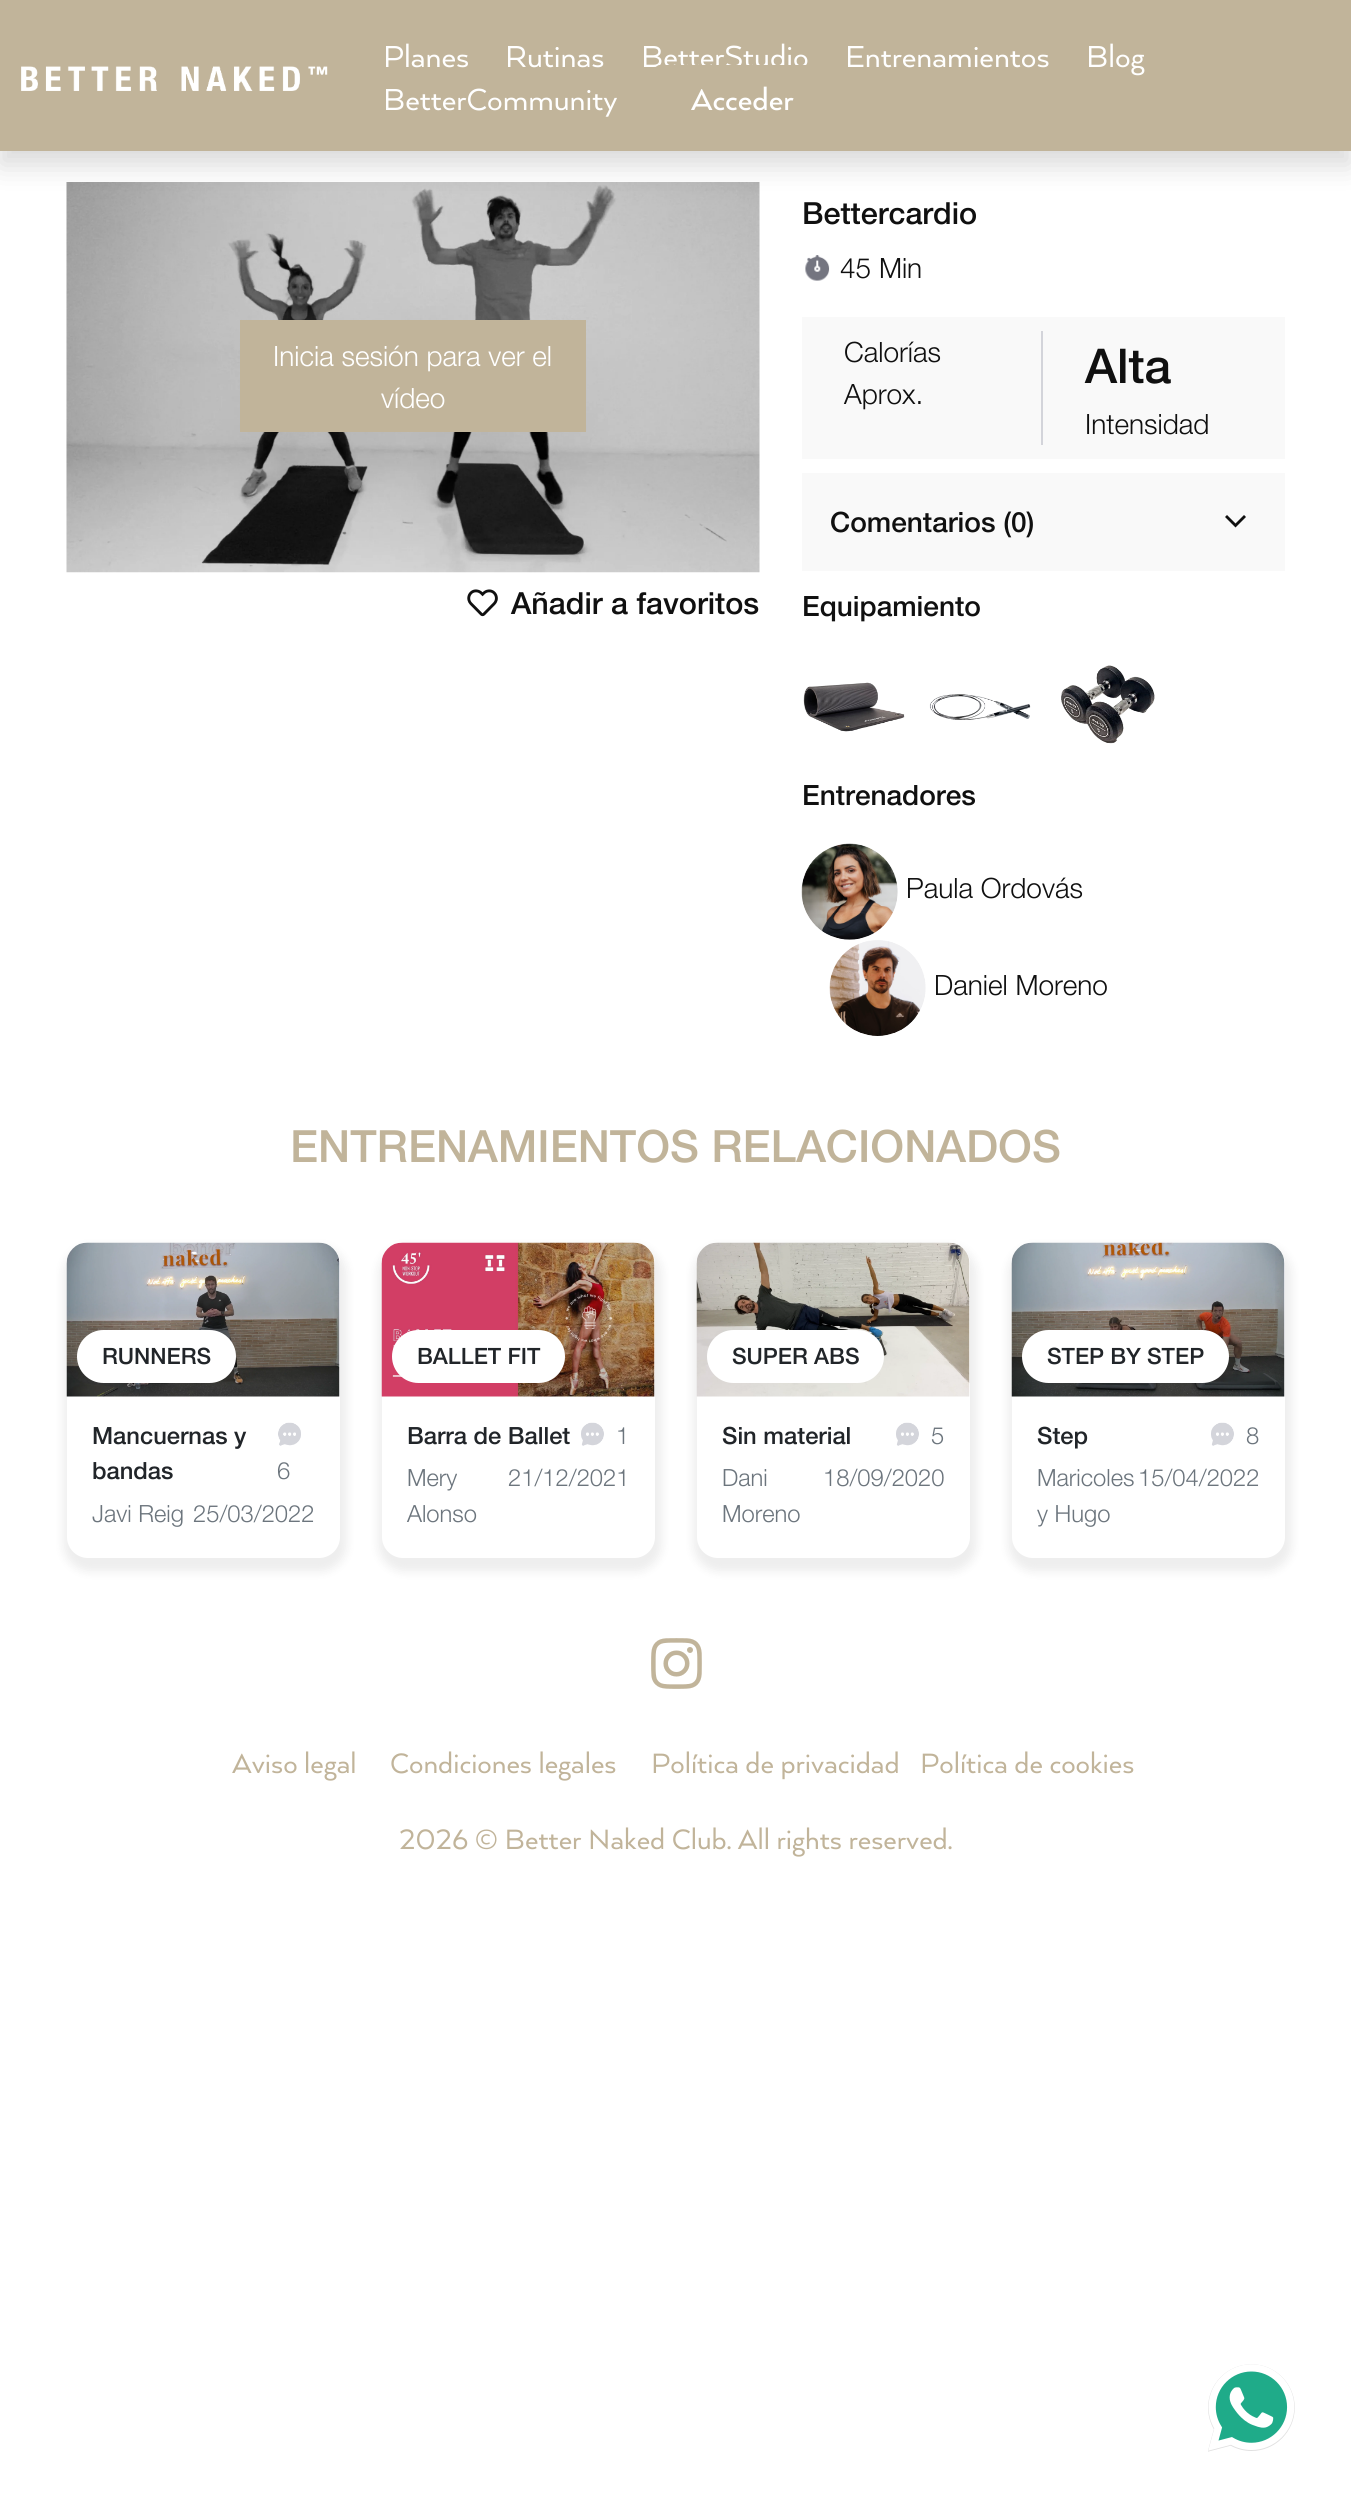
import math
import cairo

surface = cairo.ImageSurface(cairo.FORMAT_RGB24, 1351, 2507)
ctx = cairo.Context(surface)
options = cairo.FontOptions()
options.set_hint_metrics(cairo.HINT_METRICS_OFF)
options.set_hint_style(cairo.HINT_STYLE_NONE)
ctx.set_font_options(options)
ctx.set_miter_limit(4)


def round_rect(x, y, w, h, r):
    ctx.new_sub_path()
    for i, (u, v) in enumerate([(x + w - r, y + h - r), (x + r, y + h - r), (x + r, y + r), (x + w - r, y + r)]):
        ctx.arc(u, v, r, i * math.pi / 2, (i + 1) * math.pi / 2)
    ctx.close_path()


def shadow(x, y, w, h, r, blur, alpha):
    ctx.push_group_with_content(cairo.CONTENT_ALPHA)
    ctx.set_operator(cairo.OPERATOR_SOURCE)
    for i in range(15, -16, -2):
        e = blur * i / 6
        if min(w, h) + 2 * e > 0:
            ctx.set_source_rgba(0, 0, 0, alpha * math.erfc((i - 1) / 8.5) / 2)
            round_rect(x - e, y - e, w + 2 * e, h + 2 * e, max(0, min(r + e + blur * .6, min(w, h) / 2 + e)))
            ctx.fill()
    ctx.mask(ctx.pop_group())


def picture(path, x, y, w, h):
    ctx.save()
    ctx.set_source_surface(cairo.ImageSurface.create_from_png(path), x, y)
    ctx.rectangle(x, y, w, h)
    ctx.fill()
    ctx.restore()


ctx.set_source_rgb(1, 1, 1)
ctx.paint()
picture("img2.png", 66, 182, 694, 391)
ctx.set_source_rgb(0, 0, 0)
shadow(0, 14, 1351, 151, 0, 14, 0.15)
ctx.set_source_rgb(0.757, 0.706, 0.604)
ctx.rectangle(0, 0, 1351, 151)
ctx.fill()
picture("img1.png", 21, 66, 307, 25)
ctx.select_font_face("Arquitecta")
ctx.set_font_size(35)
ctx.set_source_rgb(1, 1, 1)
ctx.move_to(383, 67)
ctx.show_text("Planes")
ctx.move_to(505, 67)
ctx.show_text("Rutinas")
ctx.move_to(641, 67)
ctx.show_text("BetterStudio")
ctx.move_to(845, 67)
ctx.show_text("Entrenamientos")
ctx.move_to(1086, 67)
ctx.show_text("Blog")
ctx.move_to(383, 110)
ctx.show_text("BetterCommunity")
ctx.set_source_rgb(0.757, 0.706, 0.604)
round_rect(656, 66, 174, 71, 4)
ctx.fill_preserve()
ctx.stroke()
ctx.select_font_face("Arquitecta Medium")
ctx.set_source_rgb(1, 1, 1)
ctx.move_to(691, 110)
ctx.show_text("Acceder")
ctx.set_source_rgb(0.757, 0.706, 0.604)
ctx.rectangle(240, 320, 346, 112)
ctx.fill()
ctx.select_font_face("Helvetica Neue Light")
ctx.set_font_size(28)
ctx.set_source_rgb(1, 1, 1)
ctx.move_to(273, 366)
ctx.show_text("Inicia sesión para ver el")
ctx.move_to(381, 408)
ctx.show_text("vídeo")
picture("img3.png", 467, 589, 31, 28)
ctx.select_font_face("Helvetica Neue Medium")
ctx.set_font_size(30.5)
ctx.set_source_rgb(0.063, 0.063, 0.063)
ctx.move_to(511, 614)
ctx.show_text("Añadir a favoritos")
ctx.move_to(802, 224)
ctx.show_text("Bettercardio")
picture("img4.png", 805, 255, 25, 26)
ctx.select_font_face("Helvetica Neue Light")
ctx.set_font_size(28)
ctx.move_to(840, 278)
ctx.show_text("45 Min")
ctx.set_source_rgb(0.973, 0.973, 0.973)
ctx.rectangle(802, 317, 483, 142)
ctx.fill()
ctx.set_source_rgb(0.827, 0.831, 0.855)
ctx.rectangle(1041, 331, 2, 114)
ctx.fill()
ctx.set_source_rgb(0.063, 0.063, 0.063)
ctx.move_to(844, 362)
ctx.show_text("Calorías")
ctx.move_to(844, 404)
ctx.show_text("Aprox.")
ctx.select_font_face("Helvetica Neue Medium")
ctx.set_font_size(48)
ctx.move_to(1085, 383)
ctx.show_text("Alta")
ctx.select_font_face("Helvetica Neue Light")
ctx.set_font_size(28)
ctx.move_to(1085, 434)
ctx.show_text("Intensidad")
ctx.set_source_rgb(0.973, 0.973, 0.973)
ctx.rectangle(802, 473, 483, 98)
ctx.fill()
ctx.select_font_face("Helvetica Neue Medium")
ctx.set_source_rgb(0.063, 0.063, 0.063)
ctx.move_to(830, 532)
ctx.show_text("Comentarios (0)")
ctx.new_path()
ctx.move_to(1235.5, 527.5)
ctx.line_to(1225, 517)
ctx.line_to(1227, 515)
ctx.line_to(1235.5, 523.5)
ctx.line_to(1244, 515)
ctx.line_to(1246, 517)
ctx.close_path()
ctx.fill()
ctx.move_to(802, 616)
ctx.show_text("Equipamiento")
picture("img5.png", 803, 682, 102, 50)
picture("img6.png", 929, 694, 102, 26)
picture("img7.png", 1061, 665, 94, 79)
ctx.move_to(802, 805)
ctx.show_text("Entrenadores")
picture("img8.png", 801, 843, 97, 97)
ctx.select_font_face("Helvetica Neue Light")
ctx.move_to(906, 898)
ctx.show_text("Paula Ordovás")
picture("img9.png", 829, 940, 97, 96)
ctx.move_to(934, 995)
ctx.show_text("Daniel Moreno")
ctx.select_font_face("Helvetica Neue Medium")
ctx.set_font_size(44.5)
ctx.set_source_rgb(0.757, 0.706, 0.604)
ctx.move_to(290, 1162)
ctx.show_text("ENTRENAMIENTOS RELACIONADOS")
ctx.set_source_rgb(0, 0, 0)
shadow(63, 1246, 284, 326, 26, 5, 0.07)
ctx.set_source_rgb(1, 1, 1)
round_rect(67, 1243, 273, 315, 21)
ctx.fill()
picture("img10.png", 66, 1242, 274, 155)
round_rect(77, 1330, 159, 53, 26.5)
ctx.fill()
ctx.set_font_size(22.5)
ctx.set_source_rgb(0.129, 0.145, 0.161)
ctx.move_to(102, 1364)
ctx.show_text("RUNNERS")
ctx.set_font_size(23.75)
ctx.move_to(92, 1444)
ctx.show_text("Mancuernas y")
ctx.move_to(92, 1479)
ctx.show_text("bandas")
picture("img11.png", 278, 1422, 23, 24)
ctx.select_font_face("Helvetica Neue Light")
ctx.set_source_rgb(0.424, 0.459, 0.49)
ctx.move_to(277, 1479)
ctx.show_text("6")
ctx.move_to(92, 1522)
ctx.show_text("Javi Reig")
ctx.move_to(193, 1522)
ctx.show_text("25/03/2022")
ctx.set_source_rgb(0, 0, 0)
shadow(378, 1246, 284, 326, 26, 5, 0.07)
ctx.set_source_rgb(1, 1, 1)
round_rect(382, 1243, 273, 315, 21)
ctx.fill()
picture("img12.png", 381, 1242, 274, 155)
round_rect(392, 1330, 173, 53, 26.5)
ctx.fill()
ctx.select_font_face("Helvetica Neue Medium")
ctx.set_font_size(22.5)
ctx.set_source_rgb(0.129, 0.145, 0.161)
ctx.move_to(417, 1364)
ctx.show_text("BALLET FIT")
ctx.set_font_size(23.75)
ctx.move_to(407, 1444)
ctx.show_text("Barra de Ballet")
picture("img13.png", 581, 1422, 23, 24)
ctx.select_font_face("Helvetica Neue Light")
ctx.set_source_rgb(0.424, 0.459, 0.49)
ctx.move_to(616, 1444)
ctx.show_text("1")
ctx.move_to(407, 1486)
ctx.show_text("Mery")
ctx.move_to(407, 1522)
ctx.show_text("Alonso")
ctx.move_to(508, 1486)
ctx.show_text("21/12/2021")
ctx.set_source_rgb(0, 0, 0)
shadow(693, 1246, 284, 326, 26, 5, 0.07)
ctx.set_source_rgb(1, 1, 1)
round_rect(697, 1243, 273, 315, 21)
ctx.fill()
picture("img14.png", 696, 1242, 274, 155)
round_rect(707, 1330, 177, 53, 26.5)
ctx.fill()
ctx.select_font_face("Helvetica Neue Medium")
ctx.set_font_size(22.5)
ctx.set_source_rgb(0.129, 0.145, 0.161)
ctx.move_to(732, 1364)
ctx.show_text("SUPER ABS")
ctx.set_font_size(23.75)
ctx.move_to(722, 1444)
ctx.show_text("Sin material")
picture("img13.png", 896, 1422, 23, 24)
ctx.select_font_face("Helvetica Neue Light")
ctx.set_source_rgb(0.424, 0.459, 0.49)
ctx.move_to(931, 1444)
ctx.show_text("5")
ctx.move_to(722, 1486)
ctx.show_text("Dani")
ctx.move_to(722, 1522)
ctx.show_text("Moreno")
ctx.move_to(823, 1486)
ctx.show_text("18/09/2020")
ctx.set_source_rgb(0, 0, 0)
shadow(1008, 1246, 284, 326, 26, 5, 0.07)
ctx.set_source_rgb(1, 1, 1)
round_rect(1012, 1243, 273, 315, 21)
ctx.fill()
picture("img15.png", 1011, 1242, 274, 155)
round_rect(1022, 1330, 207, 53, 26.5)
ctx.fill()
ctx.select_font_face("Helvetica Neue Medium")
ctx.set_font_size(22.5)
ctx.set_source_rgb(0.129, 0.145, 0.161)
ctx.move_to(1047, 1364)
ctx.show_text("STEP BY STEP")
ctx.set_font_size(23.75)
ctx.move_to(1037, 1444)
ctx.show_text("Step")
picture("img13.png", 1211, 1422, 23, 24)
ctx.select_font_face("Helvetica Neue Light")
ctx.set_source_rgb(0.424, 0.459, 0.49)
ctx.move_to(1246, 1444)
ctx.show_text("8")
ctx.move_to(1037, 1486)
ctx.show_text("Maricoles")
ctx.move_to(1037, 1522)
ctx.show_text("y Hugo")
ctx.move_to(1138, 1486)
ctx.show_text("15/04/2022")
picture("img16.png", 651, 1638, 51, 51)
ctx.select_font_face("Arquitecta")
ctx.set_font_size(32.25)
ctx.set_source_rgb(0.757, 0.706, 0.604)
ctx.move_to(232, 1773)
ctx.show_text("Aviso legal")
ctx.move_to(390, 1773)
ctx.show_text("Condiciones legales")
ctx.move_to(651, 1773)
ctx.show_text("Política de privacidad")
ctx.move_to(920, 1773)
ctx.show_text("Política de cookies")
ctx.move_to(399, 1849)
ctx.show_text("2026 © Better Naked Club. All rights reserved.")
picture("img17.png", 1208, 2364, 87, 88)
surface.write_to_png("page.png")
